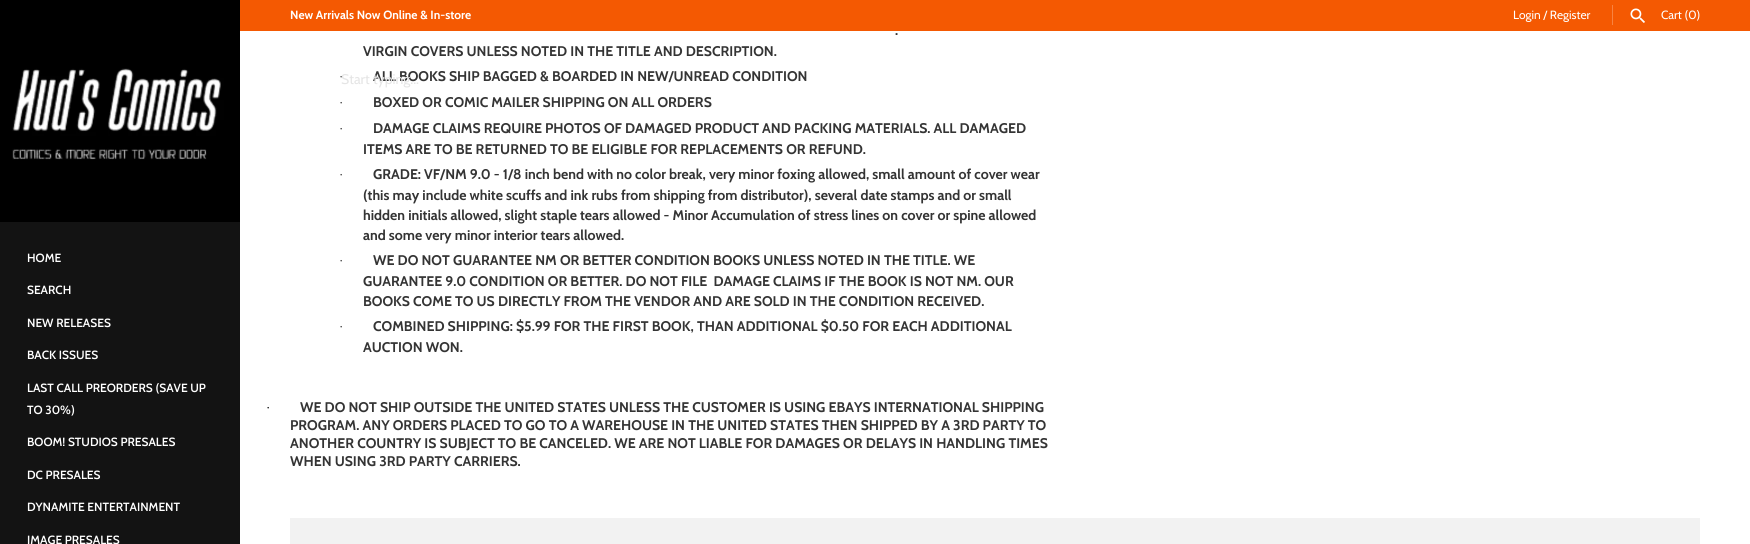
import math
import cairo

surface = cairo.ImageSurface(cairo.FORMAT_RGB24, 1750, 544)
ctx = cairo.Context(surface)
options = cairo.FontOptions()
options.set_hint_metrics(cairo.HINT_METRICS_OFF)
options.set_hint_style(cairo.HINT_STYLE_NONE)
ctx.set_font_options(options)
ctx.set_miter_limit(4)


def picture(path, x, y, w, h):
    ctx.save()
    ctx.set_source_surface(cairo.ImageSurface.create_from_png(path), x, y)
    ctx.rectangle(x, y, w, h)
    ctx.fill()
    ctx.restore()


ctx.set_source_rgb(1, 1, 1)
ctx.paint()
ctx.set_source_rgb(0.957, 0.349, 0.008)
ctx.rectangle(240, 0, 1510, 31)
ctx.fill()
ctx.select_font_face("Cabin", cairo.FONT_SLANT_NORMAL, cairo.FONT_WEIGHT_BOLD)
ctx.set_font_size(11.9)
ctx.set_source_rgb(1, 1, 1)
ctx.move_to(290, 19)
ctx.show_text("New Arrivals Now Online & In-store")
ctx.select_font_face("Cabin")
ctx.move_to(1513, 19)
ctx.show_text("Login / Register")
ctx.set_source_rgb(0.969, 0.514, 0.255)
ctx.rectangle(1612, 5, 1, 20)
ctx.fill()
picture("img1.png", 1630, 8, 15, 15)
ctx.set_source_rgb(1, 1, 1)
ctx.move_to(1661, 19)
ctx.show_text("Cart (0)")
ctx.select_font_face("Liberation Serif")
ctx.set_font_size(13)
ctx.set_source_rgb(0.204, 0.204, 0.204)
ctx.move_to(339, 81)
ctx.show_text("·")
ctx.select_font_face("Cabin", cairo.FONT_SLANT_NORMAL, cairo.FONT_WEIGHT_BOLD)
ctx.set_font_size(14)
ctx.move_to(373, 81)
ctx.show_text("ALL BOOKS SHIP BAGGED & BOARDED IN NEW/UNREAD CONDITION")
ctx.select_font_face("Cabin")
ctx.set_source_rgb(0.898, 0.898, 0.898)
ctx.move_to(341, 84)
ctx.show_text("Start typing...")
ctx.set_source_rgb(0.078, 0.078, 0.078)
ctx.rectangle(0, 222, 240, 322)
ctx.fill()
picture("img2.png", 0, 0, 240, 222)
ctx.select_font_face("Cabin SemiBold")
ctx.set_font_size(11.9)
ctx.set_source_rgb(1, 1, 1)
ctx.move_to(27, 262)
ctx.show_text("HOME")
ctx.move_to(27, 294)
ctx.show_text("SEARCH")
ctx.move_to(27, 327)
ctx.show_text("NEW RELEASES")
ctx.move_to(27, 359)
ctx.show_text("BACK ISSUES")
ctx.move_to(27, 392)
ctx.show_text("LAST CALL PREORDERS (SAVE UP")
ctx.move_to(27, 414)
ctx.show_text("TO 30%)")
ctx.move_to(27, 446)
ctx.show_text("BOOM! STUDIOS PRESALES")
ctx.move_to(27, 479)
ctx.show_text("DC PRESALES")
ctx.move_to(27, 511)
ctx.show_text("DYNAMITE ENTERTAINMENT")
ctx.move_to(27, 544)
ctx.show_text("IMAGE PRESALES")
ctx.select_font_face("Cabin", cairo.FONT_SLANT_NORMAL, cairo.FONT_WEIGHT_BOLD)
ctx.set_font_size(14)
ctx.set_source_rgb(0.204, 0.204, 0.204)
ctx.move_to(895, 35)
ctx.show_text(".")
ctx.move_to(363, 56)
ctx.show_text("VIRGIN COVERS UNLESS NOTED IN THE TITLE AND DESCRIPTION.")
ctx.select_font_face("Liberation Serif")
ctx.set_font_size(13)
ctx.move_to(339, 107)
ctx.show_text("·")
ctx.select_font_face("Cabin", cairo.FONT_SLANT_NORMAL, cairo.FONT_WEIGHT_BOLD)
ctx.set_font_size(14)
ctx.move_to(373, 107)
ctx.show_text("BOXED OR COMIC MAILER SHIPPING ON ALL ORDERS")
ctx.select_font_face("Liberation Serif")
ctx.set_font_size(13)
ctx.move_to(339, 133)
ctx.show_text("·")
ctx.select_font_face("Cabin", cairo.FONT_SLANT_NORMAL, cairo.FONT_WEIGHT_BOLD)
ctx.set_font_size(14)
ctx.move_to(373, 133)
ctx.show_text("DAMAGE CLAIMS REQUIRE PHOTOS OF DAMAGED PRODUCT AND PACKING MATERIALS. ALL DAMAGED")
ctx.move_to(363, 154)
ctx.show_text("ITEMS ARE TO BE RETURNED TO BE ELIGIBLE FOR REPLACEMENTS OR REFUND.")
ctx.select_font_face("Liberation Serif")
ctx.set_font_size(13)
ctx.move_to(339, 179)
ctx.show_text("·")
ctx.select_font_face("Cabin", cairo.FONT_SLANT_NORMAL, cairo.FONT_WEIGHT_BOLD)
ctx.set_font_size(14)
ctx.move_to(373, 179)
ctx.show_text("GRADE: VF/NM 9.0 - 1/8 inch bend with no color break, very minor foxing allowed, small amount of cover wear")
ctx.move_to(363, 200)
ctx.show_text("(this may include white scuffs and ink rubs from shipping from distributor), several date stamps and or small")
ctx.move_to(363, 220)
ctx.show_text("hidden initials allowed, slight staple tears allowed - Minor Accumulation of stress lines on cover or spine allowed")
ctx.move_to(363, 240)
ctx.show_text("and some very minor interior tears allowed.")
ctx.select_font_face("Liberation Serif")
ctx.set_font_size(13)
ctx.move_to(339, 265)
ctx.show_text("·")
ctx.select_font_face("Cabin", cairo.FONT_SLANT_NORMAL, cairo.FONT_WEIGHT_BOLD)
ctx.set_font_size(14)
ctx.move_to(373, 265)
ctx.show_text("WE DO NOT GUARANTEE NM OR BETTER CONDITION BOOKS UNLESS NOTED IN THE TITLE. WE")
ctx.move_to(363, 286)
ctx.show_text("GUARANTEE 9.0 CONDITION OR BETTER. DO NOT FILE  DAMAGE CLAIMS IF THE BOOK IS NOT NM. OUR")
ctx.move_to(363, 306)
ctx.show_text("BOOKS COME TO US DIRECTLY FROM THE VENDOR AND ARE SOLD IN THE CONDITION RECEIVED.")
ctx.select_font_face("Liberation Serif")
ctx.set_font_size(13)
ctx.move_to(339, 331)
ctx.show_text("·")
ctx.select_font_face("Cabin", cairo.FONT_SLANT_NORMAL, cairo.FONT_WEIGHT_BOLD)
ctx.set_font_size(14)
ctx.move_to(373, 331)
ctx.show_text("COMBINED SHIPPING: $5.99 FOR THE FIRST BOOK, THAN ADDITIONAL $0.50 FOR EACH ADDITIONAL")
ctx.move_to(363, 352)
ctx.show_text("AUCTION WON.")
ctx.select_font_face("Liberation Serif")
ctx.set_font_size(13)
ctx.set_source_rgb(0, 0, 0)
ctx.move_to(266, 412)
ctx.show_text("·")
ctx.select_font_face("Cabin", cairo.FONT_SLANT_NORMAL, cairo.FONT_WEIGHT_BOLD)
ctx.set_font_size(14)
ctx.set_source_rgb(0.204, 0.204, 0.204)
ctx.move_to(300, 412)
ctx.show_text("WE DO NOT SHIP OUTSIDE THE UNITED STATES UNLESS THE CUSTOMER IS USING EBAYS INTERNATIONAL SHIPPING")
ctx.move_to(290, 430)
ctx.show_text("PROGRAM. ANY ORDERS PLACED TO GO TO A WAREHOUSE IN THE UNITED STATES THEN SHIPPED BY A 3RD PARTY TO")
ctx.move_to(290, 448)
ctx.show_text("ANOTHER COUNTRY IS SUBJECT TO BE CANCELED. WE ARE NOT LIABLE FOR DAMAGES OR DELAYS IN HANDLING TIMES")
ctx.move_to(290, 466)
ctx.show_text("WHEN USING 3RD PARTY CARRIERS.")
ctx.set_source_rgb(0.949, 0.949, 0.949)
ctx.rectangle(290, 518, 1410, 26)
ctx.fill()
surface.write_to_png("page.png")
